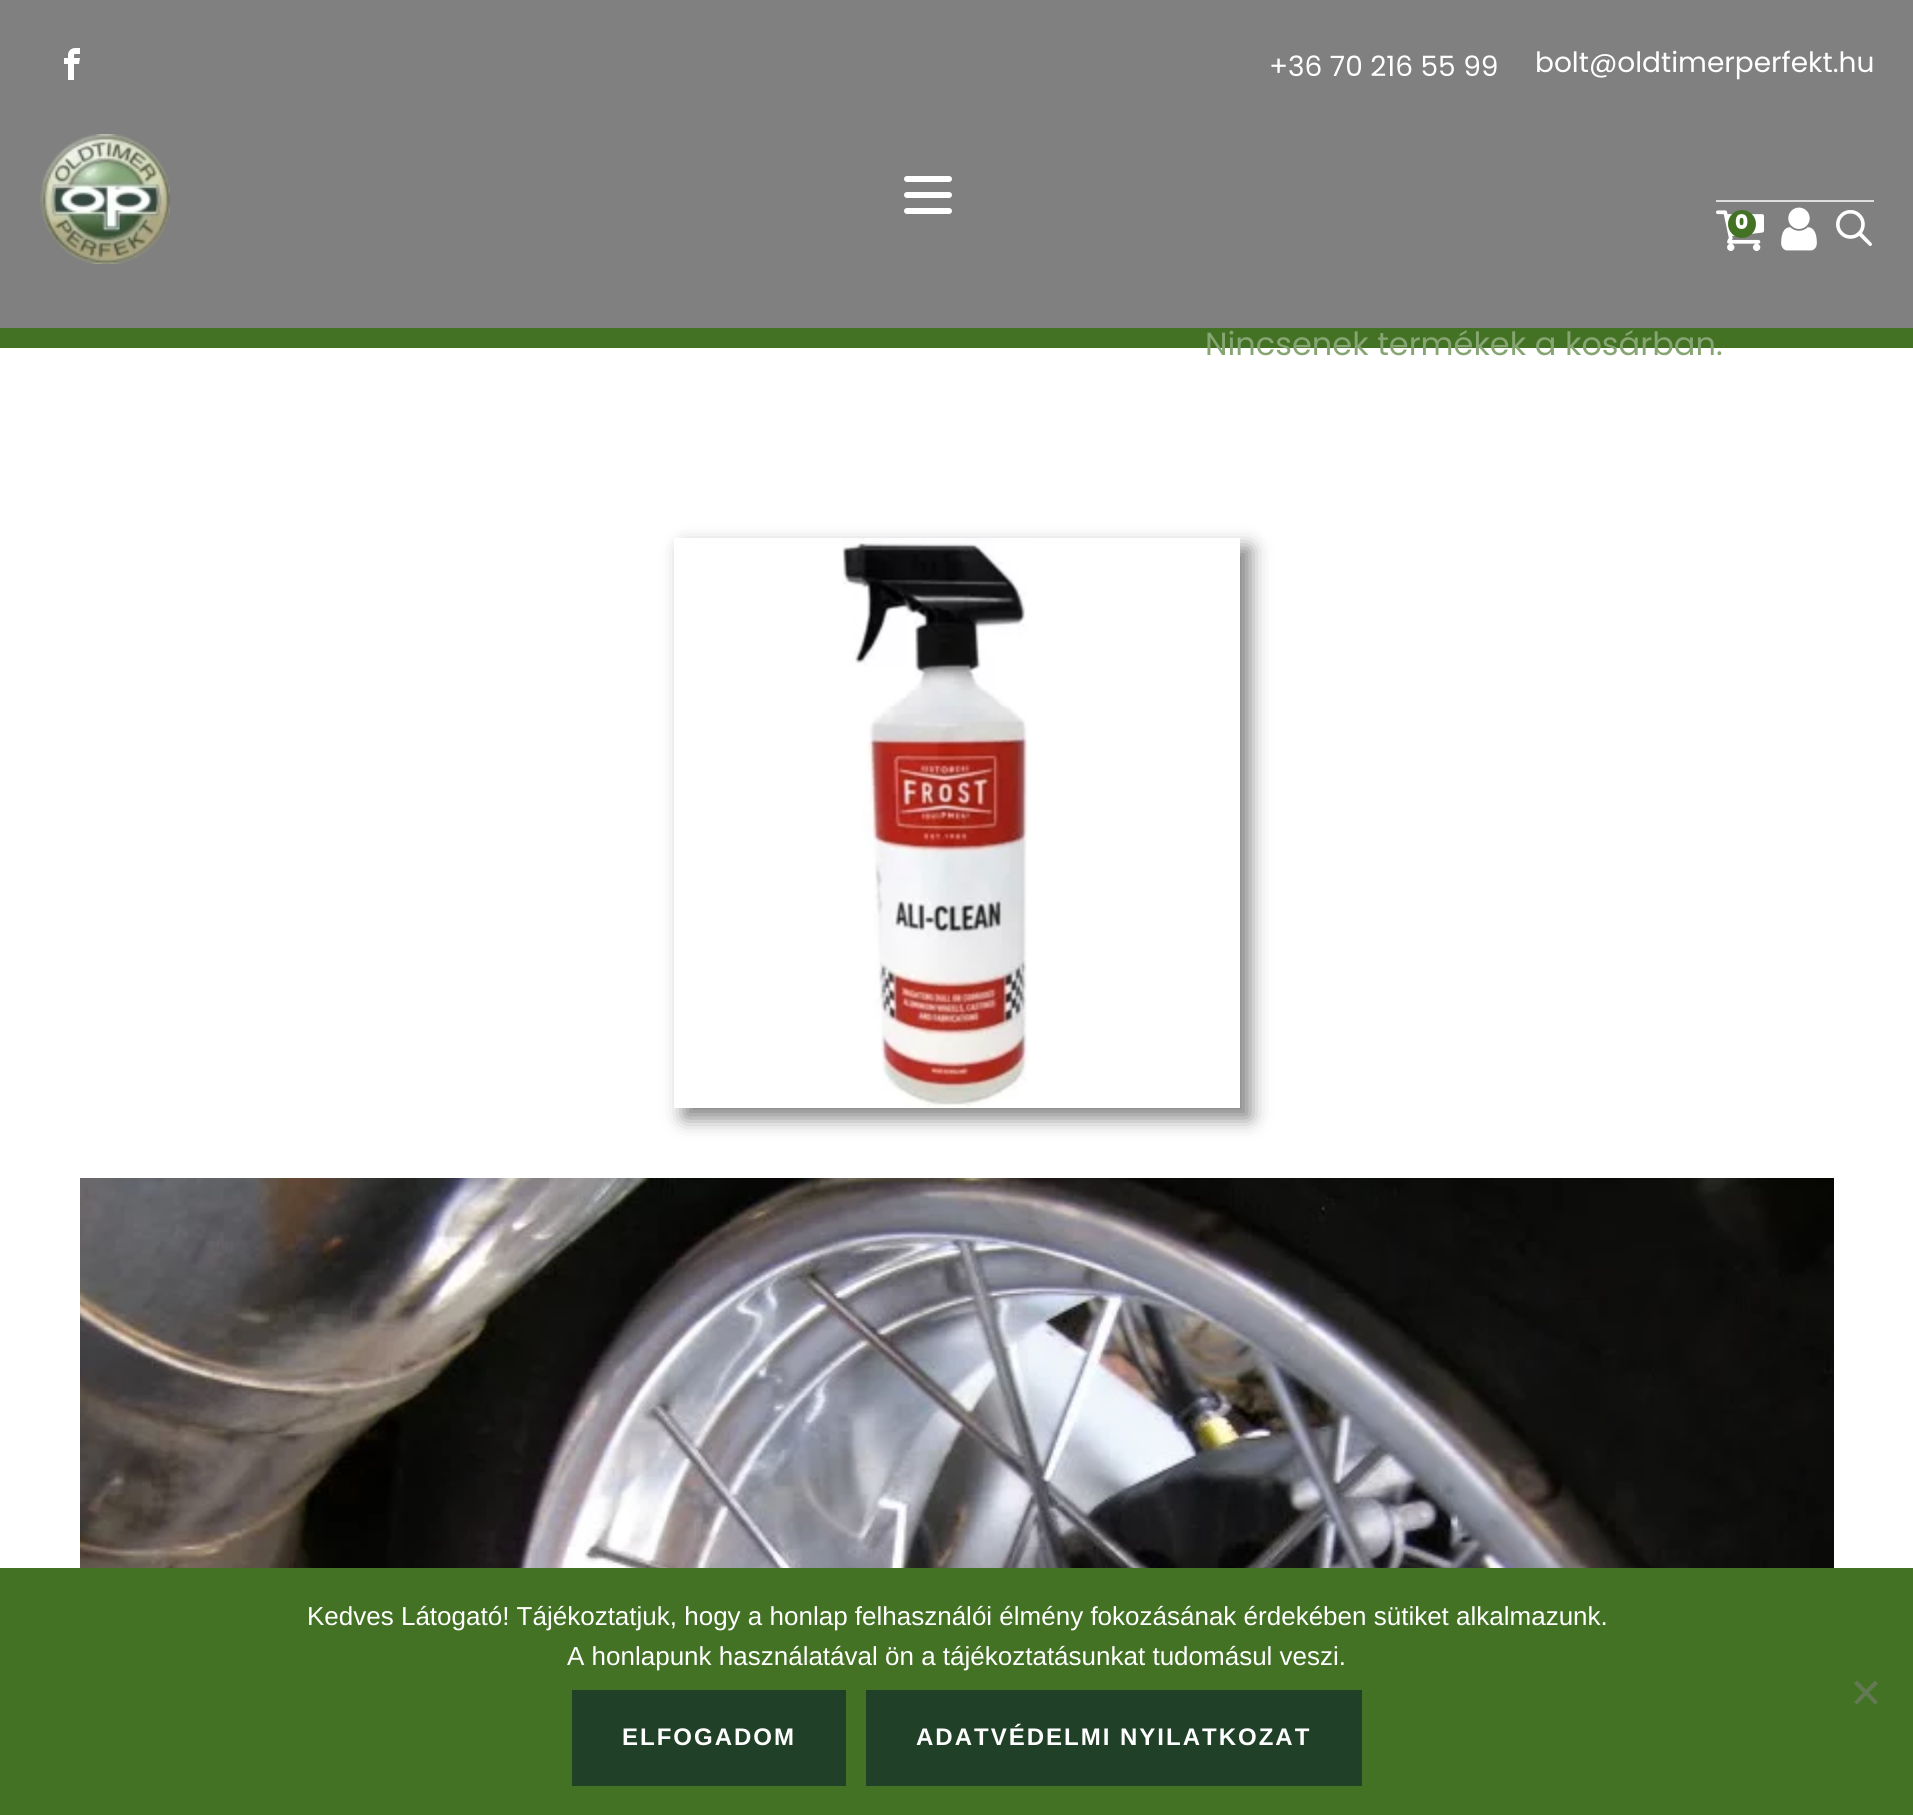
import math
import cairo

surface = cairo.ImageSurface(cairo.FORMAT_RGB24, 1913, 1815)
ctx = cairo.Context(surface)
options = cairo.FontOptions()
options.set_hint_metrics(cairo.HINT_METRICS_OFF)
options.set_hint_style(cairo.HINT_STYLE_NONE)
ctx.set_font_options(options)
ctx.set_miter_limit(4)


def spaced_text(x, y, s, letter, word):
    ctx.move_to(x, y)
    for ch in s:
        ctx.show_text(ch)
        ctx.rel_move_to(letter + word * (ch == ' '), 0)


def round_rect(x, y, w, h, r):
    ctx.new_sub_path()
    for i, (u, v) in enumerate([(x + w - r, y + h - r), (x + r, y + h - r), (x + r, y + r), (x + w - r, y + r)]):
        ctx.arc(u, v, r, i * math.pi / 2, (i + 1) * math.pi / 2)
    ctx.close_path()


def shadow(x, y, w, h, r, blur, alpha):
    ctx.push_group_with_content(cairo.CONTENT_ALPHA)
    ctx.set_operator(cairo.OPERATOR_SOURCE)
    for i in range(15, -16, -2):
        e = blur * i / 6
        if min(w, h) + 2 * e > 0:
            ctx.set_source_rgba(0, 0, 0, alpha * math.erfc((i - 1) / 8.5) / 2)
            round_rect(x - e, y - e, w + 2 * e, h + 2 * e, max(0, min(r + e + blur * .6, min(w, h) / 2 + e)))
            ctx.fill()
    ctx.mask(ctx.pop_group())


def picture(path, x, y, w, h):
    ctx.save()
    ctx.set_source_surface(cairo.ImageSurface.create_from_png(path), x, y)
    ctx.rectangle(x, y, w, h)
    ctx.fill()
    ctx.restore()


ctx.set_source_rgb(1, 1, 1)
ctx.paint()
ctx.set_source_rgb(0.502, 0.502, 0.502)
ctx.rectangle(0, 0, 1913, 328)
ctx.fill()
picture("img1.png", 64, 48, 16, 32)
ctx.select_font_face("Poppins")
ctx.set_font_size(28)
ctx.set_source_rgb(1, 1, 1)
ctx.move_to(1269, 76)
ctx.show_text("+36 70 216 55 99")
ctx.move_to(1535, 72)
ctx.show_text("bolt@oldtimerperfekt.hu")
picture("img2.png", 40, 134, 130, 130)
round_rect(904, 176, 48, 6, 3)
ctx.fill()
round_rect(904, 192, 48, 6, 3)
ctx.fill()
round_rect(904, 208, 48, 6, 3)
ctx.fill()
ctx.set_source_rgb(0.867, 0.867, 0.867)
ctx.rectangle(1716, 200, 158, 2)
ctx.fill()
picture("img3.png", 1716, 210, 48, 41)
ctx.set_source_rgb(0.267, 0.447, 0.145)
ctx.arc(1742, 224, 14, 0, 2 * math.pi)
ctx.fill()
ctx.select_font_face("Poppins ExtraBold")
ctx.set_font_size(20)
ctx.set_source_rgb(1, 1, 1)
ctx.move_to(1735, 229)
ctx.show_text("0")
ctx.set_source_rgb(0.267, 0.447, 0.145)
ctx.rectangle(0, 328, 1913, 20)
ctx.fill()
ctx.select_font_face("Poppins")
ctx.set_font_size(32)
ctx.set_source_rgb(0.529, 0.647, 0.451)
ctx.move_to(1205, 355)
ctx.show_text("Nincsenek termékek a kosárban.")
picture("img4.png", 1781, 207, 36, 44)
picture("img5.png", 1836, 210, 36, 36)
ctx.save()
ctx.set_fill_rule(cairo.FILL_RULE_EVEN_ODD)
ctx.new_path()
ctx.move_to(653, 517)
ctx.line_to(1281, 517)
ctx.line_to(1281, 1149)
ctx.line_to(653, 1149)
ctx.close_path()
ctx.move_to(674, 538)
ctx.line_to(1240, 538)
ctx.line_to(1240, 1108)
ctx.line_to(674, 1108)
ctx.close_path()
ctx.clip()
ctx.set_source_rgb(0, 0, 0)
shadow(684, 548, 566, 570, 0, 10, 0.5)
ctx.restore()
picture("img6.png", 842, 538, 186, 570)
picture("img7.png", 80, 1178, 1754, 390)
ctx.set_source_rgb(0.267, 0.447, 0.145)
ctx.rectangle(0, 1568, 1913, 247)
ctx.fill()
ctx.select_font_face("Liberation Sans")
ctx.set_font_size(26)
ctx.set_source_rgb(1, 1, 1)
ctx.move_to(307, 1625)
ctx.show_text("Kedves Látogató! Tájékoztatjuk, hogy a honlap felhasználói élmény fokozásának érdekében sütiket alkalmazunk.")
ctx.move_to(567, 1665)
ctx.show_text("A honlapunk használatával ön a tájékoztatásunkat tudomásul veszi.")
ctx.set_source_rgb(0.384, 0.475, 0.325)
ctx.new_path()
ctx.move_to(1875, 1680.5)
ctx.line_to(1878, 1683.5)
ctx.line_to(1857, 1704.5)
ctx.line_to(1854, 1702)
ctx.close_path()
ctx.fill()
ctx.new_path()
ctx.move_to(1854, 1683.5)
ctx.line_to(1857, 1680.5)
ctx.line_to(1878, 1702)
ctx.line_to(1875, 1704.5)
ctx.close_path()
ctx.fill()
ctx.set_source_rgb(0.125, 0.251, 0.157)
ctx.rectangle(572, 1690, 274, 96)
ctx.fill()
ctx.select_font_face("Liberation Sans", cairo.FONT_SLANT_NORMAL, cairo.FONT_WEIGHT_BOLD)
ctx.set_font_size(24)
ctx.set_source_rgb(1, 1, 1)
spaced_text(622, 1745, "ELFOGADOM", 2, 0)
ctx.set_source_rgb(0.125, 0.251, 0.157)
ctx.rectangle(866, 1690, 496, 96)
ctx.fill()
ctx.set_source_rgb(1, 1, 1)
spaced_text(916, 1745, "ADATVÉDELMI NYILATKOZAT", 2, 0)
surface.write_to_png("page.png")
